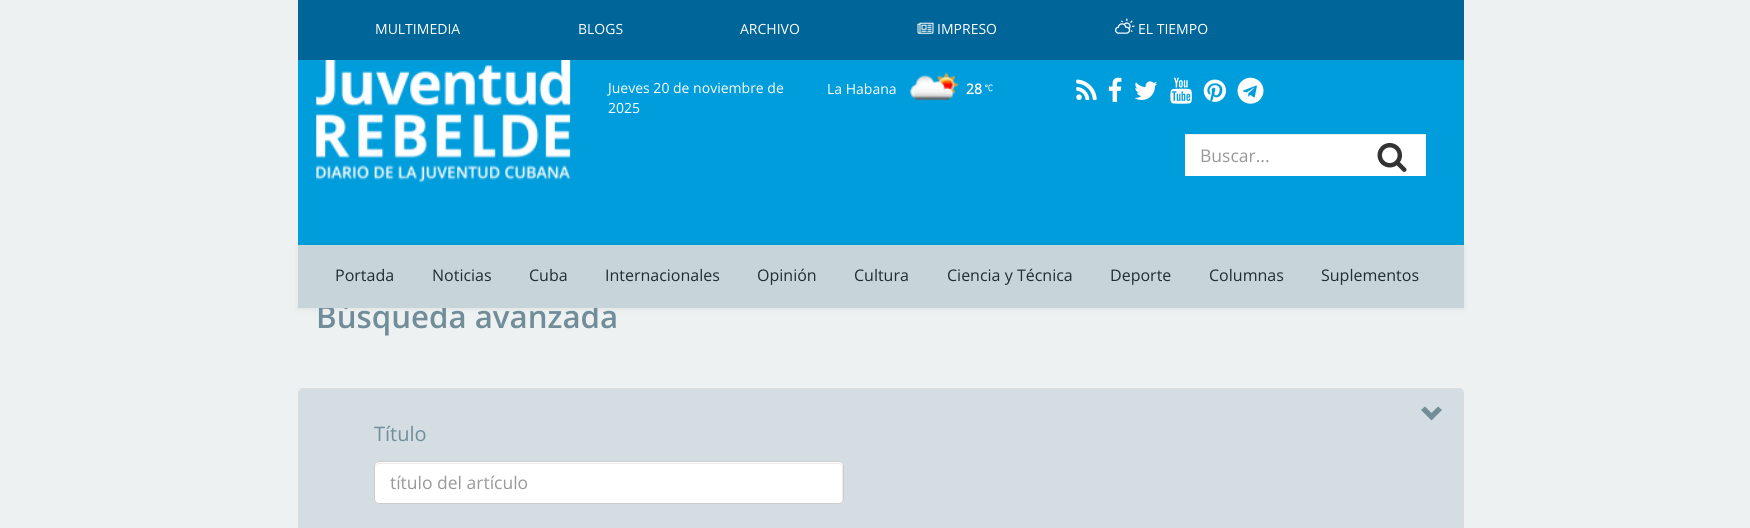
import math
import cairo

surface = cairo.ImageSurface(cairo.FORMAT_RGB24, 1750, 528)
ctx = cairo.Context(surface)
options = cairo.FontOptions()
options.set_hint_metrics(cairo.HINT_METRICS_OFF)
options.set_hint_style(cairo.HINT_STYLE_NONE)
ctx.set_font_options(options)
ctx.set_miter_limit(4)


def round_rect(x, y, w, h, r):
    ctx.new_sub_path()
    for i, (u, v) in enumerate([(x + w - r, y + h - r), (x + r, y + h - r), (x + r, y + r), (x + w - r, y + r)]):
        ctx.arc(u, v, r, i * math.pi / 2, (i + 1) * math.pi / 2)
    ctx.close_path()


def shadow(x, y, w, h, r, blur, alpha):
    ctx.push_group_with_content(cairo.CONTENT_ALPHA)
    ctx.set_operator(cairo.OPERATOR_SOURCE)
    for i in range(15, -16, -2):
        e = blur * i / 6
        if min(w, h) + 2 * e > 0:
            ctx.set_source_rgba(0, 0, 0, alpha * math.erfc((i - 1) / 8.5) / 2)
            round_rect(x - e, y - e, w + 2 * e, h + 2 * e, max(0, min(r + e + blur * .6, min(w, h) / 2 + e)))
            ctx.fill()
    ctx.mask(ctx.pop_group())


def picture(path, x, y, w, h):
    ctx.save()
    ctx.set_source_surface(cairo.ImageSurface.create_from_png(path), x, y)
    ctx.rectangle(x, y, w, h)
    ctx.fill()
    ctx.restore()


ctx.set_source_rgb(0.929, 0.945, 0.949)
ctx.paint()
ctx.set_source_rgb(0, 0.4, 0.6)
ctx.rectangle(298, 0, 1166, 60)
ctx.fill()
ctx.select_font_face("Open Sans")
ctx.set_font_size(14)
ctx.set_source_rgb(1, 1, 1)
ctx.move_to(375, 34)
ctx.show_text("MULTIMEDIA")
ctx.move_to(578, 34)
ctx.show_text("BLOGS")
ctx.move_to(740, 34)
ctx.show_text("ARCHIVO")
picture("img1.png", 917, 22, 17, 12)
ctx.move_to(937, 34)
ctx.show_text("IMPRESO")
picture("img2.png", 1115, 18, 20, 16)
ctx.move_to(1138, 34)
ctx.show_text("EL TIEMPO")
ctx.set_source_rgb(0, 0.616, 0.863)
ctx.rectangle(298, 60, 1166, 185)
ctx.fill()
picture("img3.png", 316, 60, 255, 122)
ctx.set_source_rgb(1, 1, 1)
ctx.move_to(608, 93)
ctx.show_text("Jueves 20 de noviembre de")
ctx.move_to(608, 113)
ctx.show_text("2025")
ctx.move_to(827, 94)
ctx.show_text("La Habana")
picture("img4.png", 909, 72, 50, 29)
ctx.select_font_face("Open Sans", cairo.FONT_SLANT_NORMAL, cairo.FONT_WEIGHT_BOLD)
ctx.move_to(966, 94)
ctx.show_text("28")
picture("img5.png", 985, 84, 8, 8)
picture("img6.png", 1076, 79, 21, 21)
picture("img7.png", 1108, 77, 14, 25)
picture("img8.png", 1134, 81, 24, 19)
picture("img9.png", 1170, 77, 22, 27)
picture("img10.png", 1203, 79, 23, 23)
picture("img11.png", 1237, 77, 27, 27)
ctx.rectangle(1185, 135, 241, 41)
ctx.fill()
ctx.set_source_rgb(0.925, 0.925, 0.925)
ctx.rectangle(1185, 134, 241, 1)
ctx.fill()
ctx.select_font_face("Open Sans")
ctx.set_font_size(17.5)
ctx.set_source_rgb(0.6, 0.6, 0.6)
ctx.move_to(1200, 162)
ctx.show_text("Buscar...")
picture("img12.png", 1377, 142, 30, 30)
ctx.set_source_rgb(0, 0, 0)
shadow(298, 246, 1166, 63, 0, 3, 0.07)
ctx.select_font_face("Open Sans SemiBold")
ctx.set_font_size(31.25)
ctx.set_source_rgb(0.443, 0.553, 0.6)
ctx.move_to(316, 328)
ctx.show_text("Búsqueda avanzada")
ctx.set_source_rgb(0.78, 0.831, 0.855)
ctx.rectangle(298, 245, 1166, 63)
ctx.fill()
ctx.select_font_face("Open Sans")
ctx.set_font_size(16)
ctx.set_source_rgb(0.133, 0.176, 0.192)
ctx.move_to(335, 281)
ctx.show_text("Portada")
ctx.move_to(432, 281)
ctx.show_text("Noticias")
ctx.move_to(529, 281)
ctx.show_text("Cuba")
ctx.move_to(605, 281)
ctx.show_text("Internacionales")
ctx.move_to(757, 281)
ctx.show_text("Opinión")
ctx.move_to(854, 281)
ctx.show_text("Cultura")
ctx.move_to(947, 281)
ctx.show_text("Ciencia y Técnica")
ctx.move_to(1110, 281)
ctx.show_text("Deporte")
ctx.move_to(1209, 281)
ctx.show_text("Columnas")
ctx.move_to(1321, 281)
ctx.show_text("Suplementos")
ctx.set_source_rgb(0.831, 0.871, 0.886)
round_rect(298.5, 388.5, 1165, 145, 4.5)
ctx.fill_preserve()
ctx.set_source_rgb(0.867, 0.867, 0.867)
ctx.set_line_width(1)
ctx.stroke()
ctx.set_source_rgb(0.443, 0.553, 0.596)
ctx.new_path()
ctx.move_to(1442, 410)
ctx.line_to(1431.5, 420.5)
ctx.line_to(1421, 410)
ctx.line_to(1425, 406.5)
ctx.line_to(1431.5, 413)
ctx.line_to(1438, 406.5)
ctx.close_path()
ctx.fill()
ctx.set_font_size(20)
ctx.set_source_rgb(0.443, 0.553, 0.6)
ctx.move_to(374, 441)
ctx.show_text("Título")
ctx.set_source_rgb(1, 1, 1)
round_rect(374, 461, 470, 43, 5)
ctx.fill()
ctx.set_source_rgb(0.925, 0.925, 0.925)
ctx.new_path()
ctx.move_to(379, 464)
ctx.line_to(839, 464)
ctx.curve_to(841, 464, 842, 465, 842, 468)
ctx.line_to(842, 502)
ctx.curve_to(842, 501, 843, 500, 843, 499)
ctx.line_to(843, 467)
ctx.curve_to(843, 465, 841, 463, 839, 463)
ctx.line_to(379, 463)
ctx.curve_to(377, 463, 375, 465, 375, 467)
ctx.line_to(375, 468)
ctx.curve_to(375, 465, 377, 464, 379, 464)
ctx.close_path()
ctx.fill()
round_rect(374.5, 461.5, 469, 42, 4.5)
ctx.set_source_rgb(0.8, 0.8, 0.8)
ctx.stroke()
ctx.set_font_size(17.5)
ctx.set_source_rgb(0.6, 0.6, 0.6)
ctx.move_to(390, 489)
ctx.show_text("título del artículo")
surface.write_to_png("page.png")
